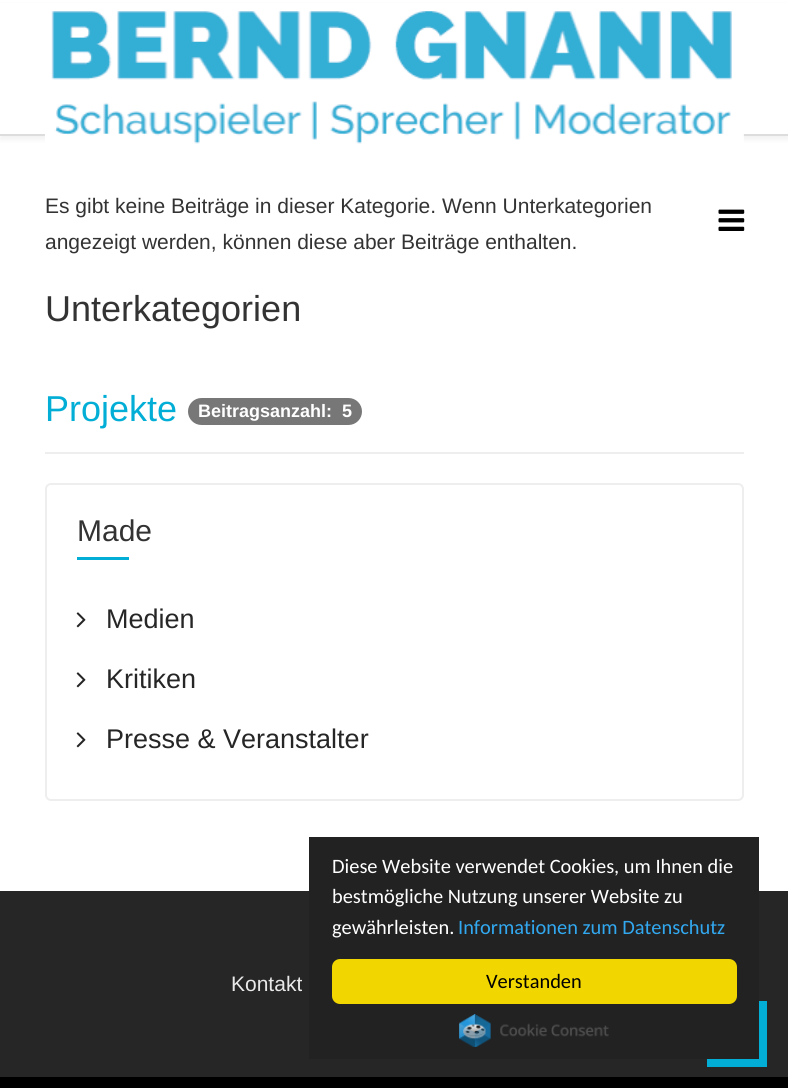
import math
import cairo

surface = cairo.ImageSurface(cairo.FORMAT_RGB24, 788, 1088)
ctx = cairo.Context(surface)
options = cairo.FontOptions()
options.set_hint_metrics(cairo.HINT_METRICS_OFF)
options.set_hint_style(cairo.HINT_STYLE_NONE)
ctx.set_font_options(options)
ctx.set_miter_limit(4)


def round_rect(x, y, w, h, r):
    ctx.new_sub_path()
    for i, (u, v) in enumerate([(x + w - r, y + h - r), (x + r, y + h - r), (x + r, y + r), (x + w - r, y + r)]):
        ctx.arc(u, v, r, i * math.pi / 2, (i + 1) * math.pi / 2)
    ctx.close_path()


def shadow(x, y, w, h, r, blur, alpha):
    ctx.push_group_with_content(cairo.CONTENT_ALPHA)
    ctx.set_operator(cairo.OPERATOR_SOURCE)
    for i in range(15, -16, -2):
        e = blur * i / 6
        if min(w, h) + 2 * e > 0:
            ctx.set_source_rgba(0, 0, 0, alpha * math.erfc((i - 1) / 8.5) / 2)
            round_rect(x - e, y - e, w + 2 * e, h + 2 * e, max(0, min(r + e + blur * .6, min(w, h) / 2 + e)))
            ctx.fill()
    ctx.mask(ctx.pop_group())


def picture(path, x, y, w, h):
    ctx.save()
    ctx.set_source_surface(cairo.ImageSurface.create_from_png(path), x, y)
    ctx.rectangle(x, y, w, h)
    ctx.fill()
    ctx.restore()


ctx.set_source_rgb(1, 1, 1)
ctx.paint()
ctx.set_source_rgb(0, 0, 0)
shadow(0, 5, 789, 135, 0, 2, 0.05)
ctx.set_source_rgb(1, 1, 1)
ctx.rectangle(0, 3, 788, 131)
ctx.fill()
ctx.set_source_rgb(0.867, 0.867, 0.867)
ctx.rectangle(0, 134, 788, 2)
ctx.fill()
picture("img1.png", 45, 11, 699, 146)
picture("img2.png", 718, 209, 27, 22)
ctx.select_font_face("Liberation Sans")
ctx.set_font_size(21)
ctx.set_source_rgb(0.2, 0.2, 0.2)
ctx.move_to(45, 213)
ctx.show_text("Es gibt keine Beiträge in dieser Kategorie. Wenn Unterkategorien")
ctx.move_to(45, 249)
ctx.show_text("angezeigt werden, können diese aber Beiträge enthalten.")
ctx.set_font_size(36)
ctx.move_to(45, 321)
ctx.show_text("Unterkategorien")
ctx.set_source_rgb(0.933, 0.933, 0.933)
ctx.rectangle(45, 452, 699, 2)
ctx.fill()
ctx.set_source_rgb(0.008, 0.682, 0.839)
ctx.move_to(45, 421)
ctx.show_text("Projekte")
ctx.set_source_rgb(0.467, 0.467, 0.467)
round_rect(188, 398, 174, 27, 13.5)
ctx.fill()
ctx.select_font_face("Liberation Sans", cairo.FONT_SLANT_NORMAL, cairo.FONT_WEIGHT_BOLD)
ctx.set_font_size(18)
ctx.set_source_rgb(1, 1, 1)
ctx.move_to(198, 417)
ctx.show_text("Beitragsanzahl:")
ctx.move_to(342, 417)
ctx.show_text("5")
round_rect(46, 484, 697, 316, 5)
ctx.set_source_rgb(0.933, 0.933, 0.933)
ctx.stroke()
ctx.select_font_face("Liberation Sans")
ctx.set_font_size(30)
ctx.set_source_rgb(0.2, 0.2, 0.2)
ctx.move_to(77, 541)
ctx.show_text("Made")
ctx.set_source_rgb(0.008, 0.682, 0.839)
ctx.rectangle(77, 557, 52, 3)
ctx.fill()
picture("img3.png", 76, 612, 10, 16)
ctx.set_font_size(27)
ctx.set_source_rgb(0.149, 0.149, 0.149)
ctx.move_to(106, 628)
ctx.show_text("Medien")
picture("img3.png", 76, 672, 10, 16)
ctx.move_to(106, 688)
ctx.show_text("Kritiken")
picture("img3.png", 76, 732, 10, 16)
ctx.move_to(106, 748)
ctx.show_text("Presse & Veranstalter")
ctx.rectangle(0, 891, 788, 186)
ctx.fill()
ctx.set_font_size(21)
ctx.set_source_rgb(0.914, 0.914, 0.914)
ctx.move_to(231, 991)
ctx.show_text("Kontakt")
ctx.set_source_rgb(0, 0, 0)
ctx.rectangle(0, 1077, 788, 11)
ctx.fill()
ctx.set_source_rgb(0.008, 0.682, 0.839)
ctx.rectangle(707, 1001, 60, 66)
ctx.fill()
ctx.set_source_rgb(0.133, 0.133, 0.133)
ctx.rectangle(309, 837, 450, 222)
ctx.fill()
ctx.select_font_face("Carlito")
ctx.set_font_size(20.4)
ctx.set_source_rgb(1, 1, 1)
ctx.move_to(332, 873)
ctx.show_text("Diese Website verwendet Cookies, um Ihnen die")
ctx.move_to(332, 903)
ctx.show_text("bestmögliche Nutzung unserer Website zu")
ctx.move_to(332, 934)
ctx.show_text("gewährleisten.")
ctx.set_source_rgb(0.192, 0.659, 0.941)
ctx.move_to(458, 934)
ctx.show_text("Informationen zum Datenschutz")
ctx.set_source_rgb(0.945, 0.839, 0)
round_rect(332, 959, 405, 45, 8)
ctx.fill()
ctx.set_source_rgb(0, 0, 0)
ctx.move_to(486, 988)
ctx.show_text("Verstanden")
picture("img4.png", 459, 1014, 150, 33)
surface.write_to_png("page.png")
